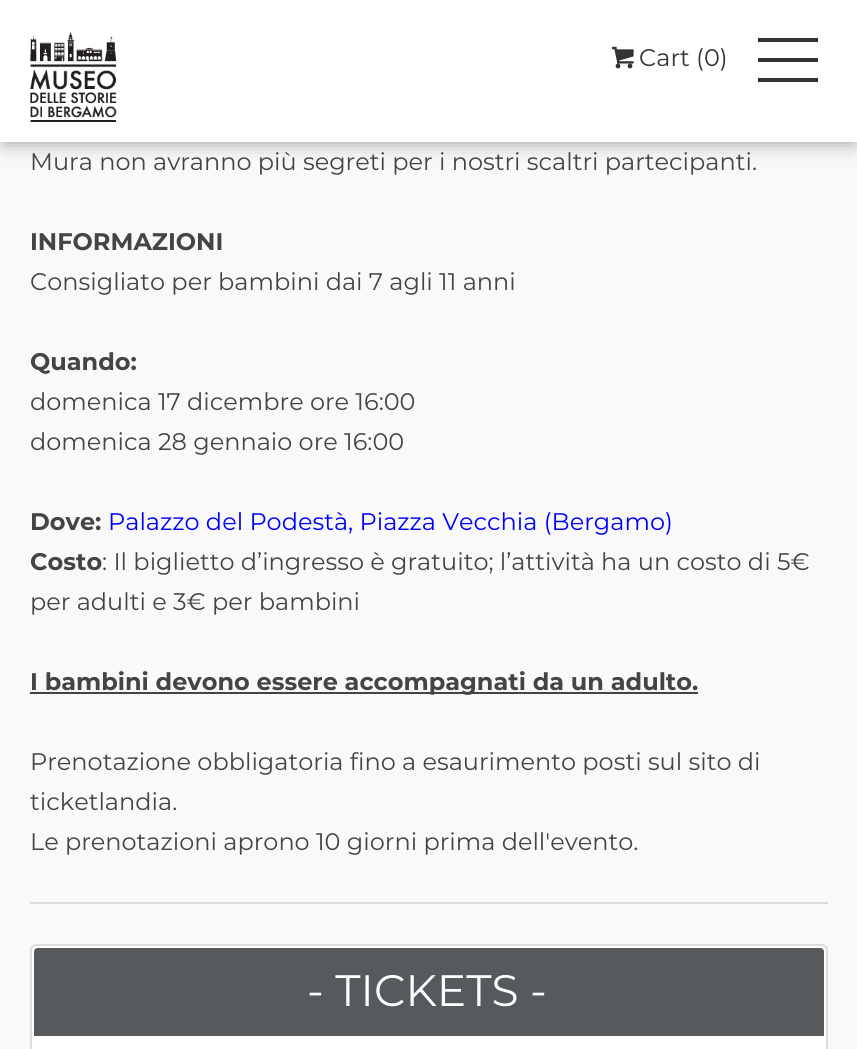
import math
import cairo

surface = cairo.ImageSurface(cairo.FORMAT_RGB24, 857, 1049)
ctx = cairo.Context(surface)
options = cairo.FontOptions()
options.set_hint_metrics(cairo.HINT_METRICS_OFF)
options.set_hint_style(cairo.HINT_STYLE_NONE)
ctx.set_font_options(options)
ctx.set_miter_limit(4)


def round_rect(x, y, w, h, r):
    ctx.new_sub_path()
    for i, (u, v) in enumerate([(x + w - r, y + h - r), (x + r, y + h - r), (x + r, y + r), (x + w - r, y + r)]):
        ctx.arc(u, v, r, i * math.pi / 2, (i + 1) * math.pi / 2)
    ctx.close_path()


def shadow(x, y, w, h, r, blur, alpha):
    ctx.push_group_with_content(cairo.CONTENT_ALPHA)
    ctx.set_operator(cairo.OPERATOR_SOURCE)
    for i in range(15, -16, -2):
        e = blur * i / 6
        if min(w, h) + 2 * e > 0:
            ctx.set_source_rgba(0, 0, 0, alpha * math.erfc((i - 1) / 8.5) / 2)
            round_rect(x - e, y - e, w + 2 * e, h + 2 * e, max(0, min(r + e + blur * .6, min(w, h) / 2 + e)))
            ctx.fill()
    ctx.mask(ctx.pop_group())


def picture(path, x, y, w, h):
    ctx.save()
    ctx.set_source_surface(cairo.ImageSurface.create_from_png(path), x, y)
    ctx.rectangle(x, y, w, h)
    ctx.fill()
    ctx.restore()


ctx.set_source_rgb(0.976, 0.976, 0.976)
ctx.paint()
ctx.set_source_rgb(0, 0, 0)
shadow(4, 8, 850, 134, 0, 10, 0.41)
ctx.set_source_rgb(1, 1, 1)
ctx.rectangle(0, 0, 857, 142)
ctx.fill()
picture("img1.png", 30, 32, 87, 90)
picture("img2.png", 612, 46, 22, 23)
ctx.select_font_face("Montserrat")
ctx.set_font_size(24)
ctx.set_source_rgb(0.2, 0.2, 0.2)
ctx.move_to(639, 66)
ctx.show_text("Cart (0)")
ctx.rectangle(758, 58, 60, 4)
ctx.fill()
ctx.rectangle(758, 38, 60, 4)
ctx.fill()
ctx.rectangle(758, 78, 60, 4)
ctx.fill()
ctx.set_source_rgb(0.267, 0.267, 0.267)
ctx.move_to(30, 170)
ctx.show_text("Mura non avranno più segreti per i nostri scaltri partecipanti.")
ctx.select_font_face("Montserrat", cairo.FONT_SLANT_NORMAL, cairo.FONT_WEIGHT_BOLD)
ctx.move_to(30, 250)
ctx.show_text("INFORMAZIONI")
ctx.select_font_face("Montserrat")
ctx.move_to(30, 290)
ctx.show_text("Consigliato per bambini dai 7 agli 11 anni")
ctx.select_font_face("Montserrat", cairo.FONT_SLANT_NORMAL, cairo.FONT_WEIGHT_BOLD)
ctx.move_to(30, 370)
ctx.show_text("Quando:")
ctx.select_font_face("Montserrat")
ctx.move_to(30, 410)
ctx.show_text("domenica 17 dicembre ore 16:00")
ctx.move_to(30, 450)
ctx.show_text("domenica 28 gennaio ore 16:00")
ctx.select_font_face("Montserrat", cairo.FONT_SLANT_NORMAL, cairo.FONT_WEIGHT_BOLD)
ctx.move_to(30, 530)
ctx.show_text("Dove:")
ctx.select_font_face("Montserrat")
ctx.set_source_rgb(0, 0, 1)
ctx.move_to(108, 530)
ctx.show_text("Palazzo del Podestà, Piazza Vecchia (Bergamo)")
ctx.select_font_face("Montserrat", cairo.FONT_SLANT_NORMAL, cairo.FONT_WEIGHT_BOLD)
ctx.set_source_rgb(0.267, 0.267, 0.267)
ctx.move_to(30, 570)
ctx.show_text("Costo")
ctx.select_font_face("Montserrat")
ctx.move_to(102, 570)
ctx.show_text(": Il biglietto d’ingresso è gratuito; l’attività ha un costo di 5€")
ctx.move_to(30, 610)
ctx.show_text("per adulti e 3€ per bambini")
ctx.rectangle(30, 692, 668, 2)
ctx.fill()
ctx.select_font_face("Montserrat", cairo.FONT_SLANT_NORMAL, cairo.FONT_WEIGHT_BOLD)
ctx.move_to(30, 690)
ctx.show_text("I bambini devono essere accompagnati da un adulto.")
ctx.select_font_face("Montserrat")
ctx.move_to(30, 770)
ctx.show_text("Prenotazione obbligatoria fino a esaurimento posti sul sito di")
ctx.move_to(30, 810)
ctx.show_text("ticketlandia.")
ctx.move_to(30, 850)
ctx.show_text("Le prenotazioni aprono 10 giorni prima dell'evento.")
ctx.set_source_rgb(0.867, 0.867, 0.867)
ctx.rectangle(30, 902, 798, 2)
ctx.fill()
ctx.set_source_rgb(1, 1, 1)
round_rect(31, 945, 796, 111, 5)
ctx.fill_preserve()
ctx.set_source_rgb(0.867, 0.867, 0.867)
ctx.stroke()
ctx.set_source_rgb(0.337, 0.353, 0.361)
ctx.new_path()
ctx.move_to(38, 947)
ctx.line_to(820, 947)
ctx.curve_to(823, 947, 825, 949, 825, 952)
ctx.line_to(825, 1037)
ctx.line_to(33, 1037)
ctx.line_to(33, 952)
ctx.curve_to(33, 949, 35, 947, 38, 947)
ctx.close_path()
ctx.fill_preserve()
ctx.set_source_rgb(1, 1, 1)
ctx.stroke()
ctx.set_font_size(44)
ctx.move_to(307, 1006)
ctx.show_text("- TICKETS -")
surface.write_to_png("page.png")
